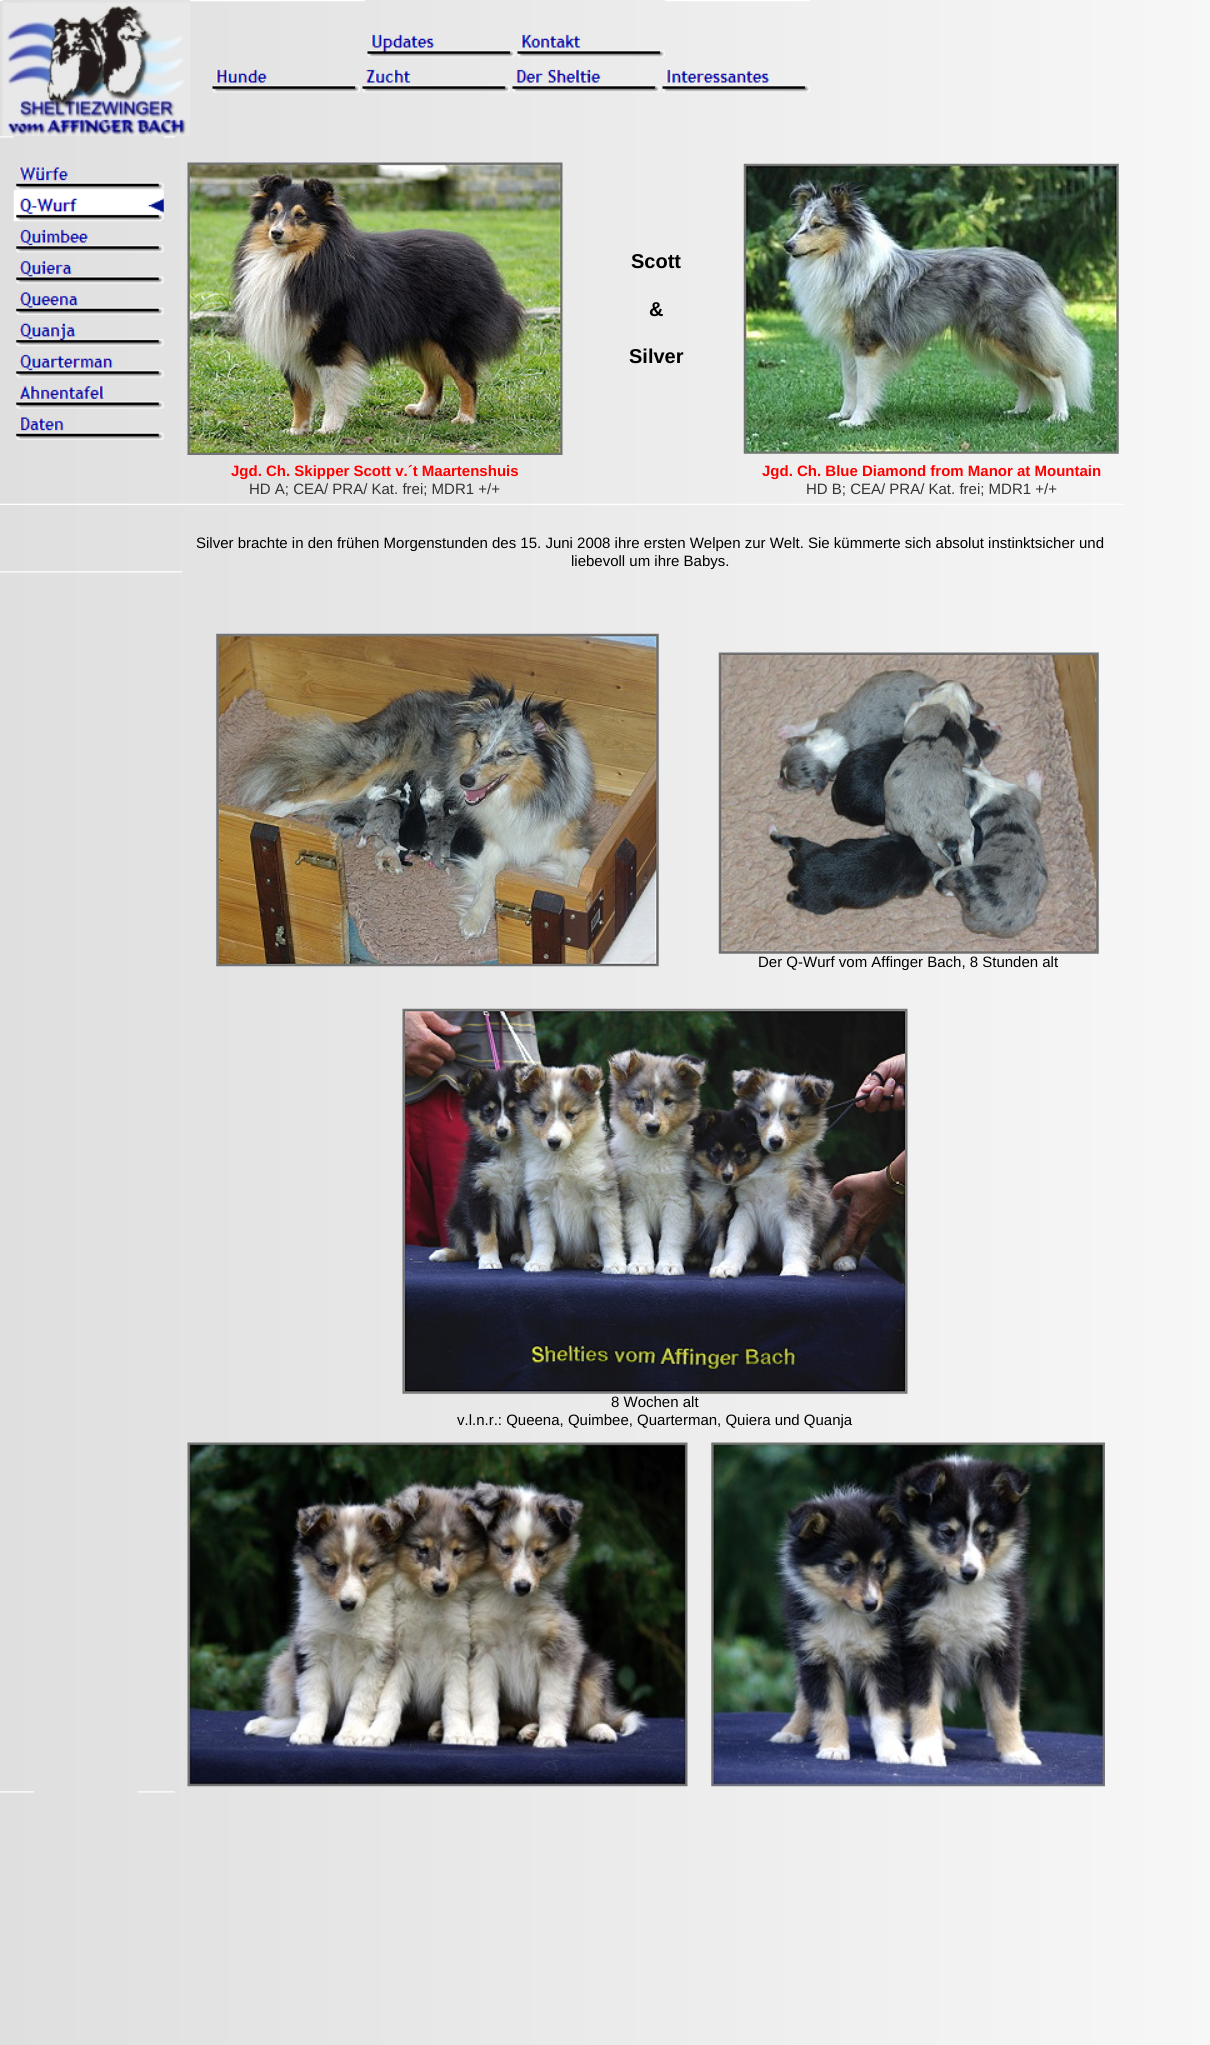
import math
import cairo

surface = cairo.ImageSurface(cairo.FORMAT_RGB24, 1210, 2045)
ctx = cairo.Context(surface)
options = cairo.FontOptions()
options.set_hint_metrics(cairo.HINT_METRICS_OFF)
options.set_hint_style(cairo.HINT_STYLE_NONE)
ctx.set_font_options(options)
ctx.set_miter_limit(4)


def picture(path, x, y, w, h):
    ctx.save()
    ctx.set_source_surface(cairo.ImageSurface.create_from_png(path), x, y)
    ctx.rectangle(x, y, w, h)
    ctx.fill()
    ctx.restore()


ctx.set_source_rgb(1, 1, 1)
ctx.paint()
picture("img1.png", 0, 0, 1210, 2045)
picture("img2.png", 0, 0, 3, 2)
picture("img3.png", 190, 0, 20, 2)
picture("img4.png", 210, 0, 155, 2)
picture("img5.png", 665, 0, 145, 2)
picture("img6.png", 2, 2, 188, 134)
picture("img7.png", 367, 34, 148, 24)
picture("img8.png", 517, 34, 148, 24)
picture("img9.png", 212, 69, 148, 24)
picture("img10.png", 362, 69, 148, 24)
picture("img11.png", 512, 69, 148, 24)
picture("img12.png", 662, 69, 148, 24)
picture("img13.png", 0, 136, 14, 2)
picture("img14.png", 16, 167, 148, 23)
picture("img15.png", 13, 190, 151, 32)
picture("img16.png", 16, 229, 148, 24)
picture("img17.png", 16, 261, 148, 23)
picture("img18.png", 16, 292, 148, 23)
picture("img19.png", 16, 323, 148, 24)
picture("img20.png", 16, 354, 148, 24)
picture("img21.png", 16, 386, 148, 23)
picture("img22.png", 16, 417, 148, 23)
picture("img23.png", 163, 136, 12, 2)
picture("img24.png", 187, 162, 376, 293)
ctx.select_font_face("Liberation Sans", cairo.FONT_SLANT_NORMAL, cairo.FONT_WEIGHT_BOLD)
ctx.set_font_size(20)
ctx.set_source_rgb(0, 0, 0)
ctx.move_to(631, 268)
ctx.show_text("Scott")
ctx.move_to(649, 316)
ctx.show_text("&")
ctx.move_to(629, 363)
ctx.show_text("Silver")
picture("img25.png", 743, 163, 376, 291)
ctx.set_font_size(15)
ctx.set_source_rgb(1, 0, 0)
ctx.move_to(231, 476)
ctx.show_text("Jgd. Ch. Skipper Scott v.´t Maartenshuis")
ctx.select_font_face("Liberation Sans")
ctx.set_source_rgb(0.2, 0.2, 0.2)
ctx.move_to(249, 494)
ctx.show_text("HD A; CEA/ PRA/ Kat. frei; MDR1 +/+")
ctx.select_font_face("Liberation Sans", cairo.FONT_SLANT_NORMAL, cairo.FONT_WEIGHT_BOLD)
ctx.set_source_rgb(1, 0, 0)
ctx.move_to(762, 476)
ctx.show_text("Jgd. Ch. Blue Diamond from Manor at Mountain")
ctx.select_font_face("Liberation Sans")
ctx.set_source_rgb(0.2, 0.2, 0.2)
ctx.move_to(806, 494)
ctx.show_text("HD B; CEA/ PRA/ Kat. frei; MDR1 +/+")
picture("img26.png", 0, 503, 175, 2)
picture("img27.png", 175, 503, 950, 2)
ctx.set_source_rgb(0, 0, 0)
ctx.move_to(196, 548)
ctx.show_text("Silver brachte in den frühen Morgenstunden des 15. Juni 2008 ihre ersten Welpen zur Welt. Sie kümmerte sich absolut instinktsicher und")
ctx.move_to(571, 566)
ctx.show_text("liebevoll um ihre Babys.")
picture("img28.png", 0, 571, 183, 2)
picture("img29.png", 216, 633, 443, 334)
picture("img30.png", 718, 652, 381, 302)
ctx.move_to(758, 967)
ctx.show_text("Der Q-Wurf vom Affinger Bach, 8 Stunden alt")
picture("img31.png", 402, 1008, 506, 386)
ctx.move_to(611, 1407)
ctx.show_text("8 Wochen alt")
ctx.move_to(457, 1425)
ctx.show_text("v.l.n.r.: Queena, Quimbee, Quarterman, Quiera und Quanja")
picture("img32.png", 187, 1442, 501, 345)
picture("img33.png", 711, 1442, 394, 345)
picture("img34.png", 0, 1791, 34, 2)
picture("img35.png", 137, 1791, 38, 2)
surface.write_to_png("page.png")
